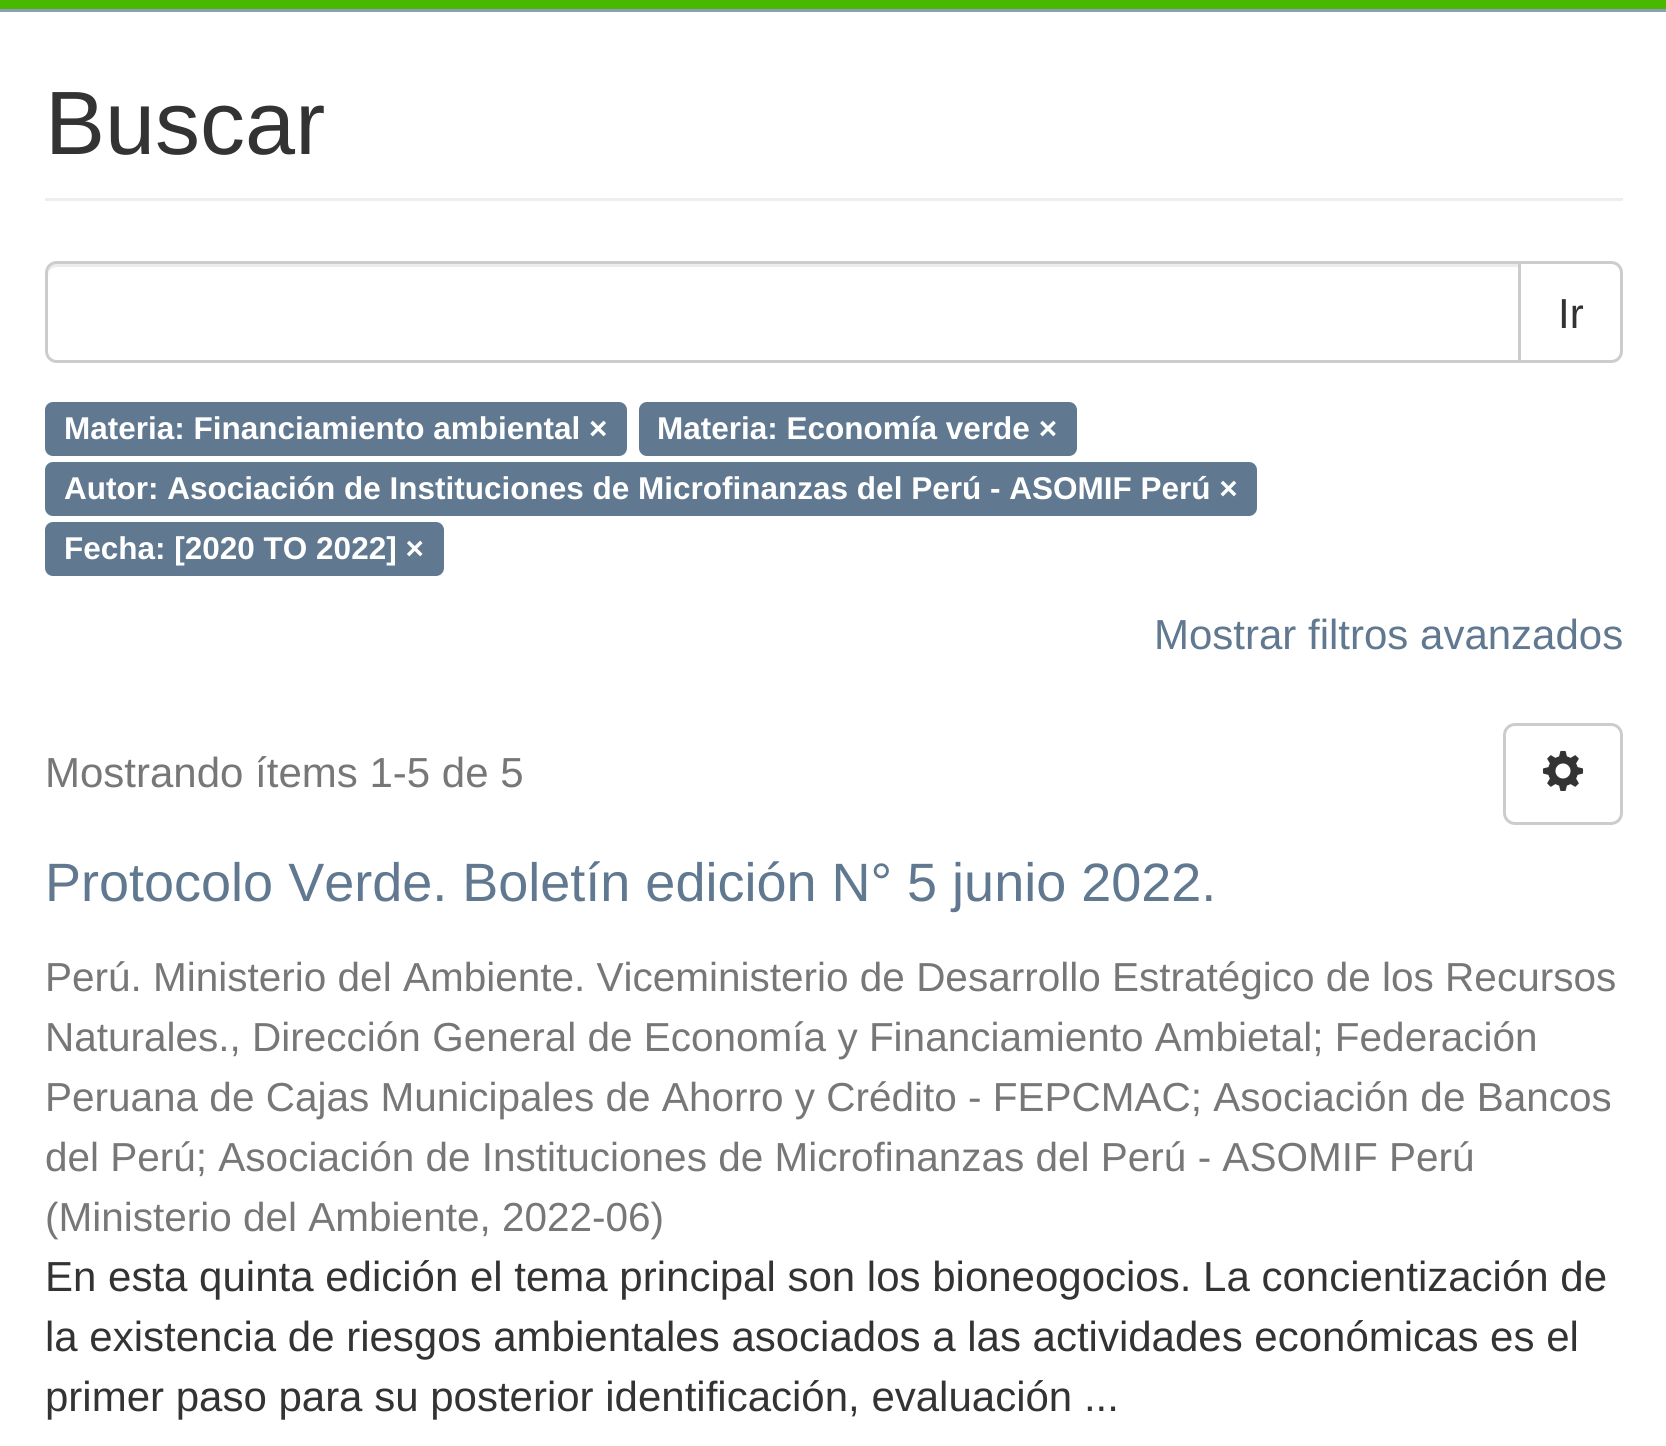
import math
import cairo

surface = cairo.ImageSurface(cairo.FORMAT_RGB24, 1666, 1446)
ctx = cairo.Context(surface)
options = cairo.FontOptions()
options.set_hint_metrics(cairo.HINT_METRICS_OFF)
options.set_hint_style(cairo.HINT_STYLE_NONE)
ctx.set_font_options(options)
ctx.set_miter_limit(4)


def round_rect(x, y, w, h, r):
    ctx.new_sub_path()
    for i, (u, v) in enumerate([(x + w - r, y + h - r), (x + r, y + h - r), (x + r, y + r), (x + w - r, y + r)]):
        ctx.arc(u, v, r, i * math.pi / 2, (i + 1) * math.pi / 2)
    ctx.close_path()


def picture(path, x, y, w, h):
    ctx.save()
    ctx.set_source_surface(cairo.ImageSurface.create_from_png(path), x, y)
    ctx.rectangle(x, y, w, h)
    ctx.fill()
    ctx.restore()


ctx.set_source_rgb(0.282, 0.722, 0)
ctx.paint()
ctx.set_source_rgb(0.545, 0.62, 0.698)
ctx.rectangle(0, 9, 1666, 3)
ctx.fill()
ctx.set_source_rgb(1, 1, 1)
ctx.rectangle(0, 12, 1666, 1434)
ctx.fill()
ctx.set_source_rgb(0.933, 0.933, 0.933)
ctx.rectangle(45, 198, 1578, 3)
ctx.fill()
ctx.select_font_face("Liberation Sans")
ctx.set_font_size(90)
ctx.set_source_rgb(0.2, 0.2, 0.2)
ctx.move_to(45, 154)
ctx.show_text("Buscar")
ctx.new_path()
ctx.move_to(1519.5, 262.5)
ctx.line_to(1611, 262.5)
ctx.curve_to(1617, 262.5, 1621.5, 267, 1621.5, 273)
ctx.line_to(1621.5, 351)
ctx.curve_to(1621.5, 357, 1617, 361.5, 1611, 361.5)
ctx.line_to(1519.5, 361.5)
ctx.close_path()
ctx.set_source_rgb(0.8, 0.8, 0.8)
ctx.set_line_width(3)
ctx.stroke()
ctx.set_source_rgb(1, 1, 1)
ctx.new_path()
ctx.move_to(57, 261)
ctx.line_to(1521, 261)
ctx.line_to(1521, 363)
ctx.line_to(57, 363)
ctx.curve_to(50.5, 363, 45, 357.5, 45, 351)
ctx.line_to(45, 273)
ctx.curve_to(45, 266.5, 50.5, 261, 57, 261)
ctx.close_path()
ctx.fill()
ctx.set_source_rgb(0.925, 0.925, 0.925)
ctx.new_path()
ctx.move_to(57, 267)
ctx.line_to(1518, 267)
ctx.line_to(1518, 264)
ctx.line_to(57, 264)
ctx.curve_to(50, 264, 48, 270, 48, 276)
ctx.curve_to(48, 271, 52, 267, 57, 267)
ctx.close_path()
ctx.fill()
ctx.new_path()
ctx.move_to(57, 262.5)
ctx.line_to(1519.5, 262.5)
ctx.line_to(1519.5, 361.5)
ctx.line_to(57, 361.5)
ctx.curve_to(51, 361.5, 46.5, 357, 46.5, 351)
ctx.line_to(46.5, 273)
ctx.curve_to(46.5, 267, 51, 262.5, 57, 262.5)
ctx.close_path()
ctx.set_source_rgb(0.8, 0.8, 0.8)
ctx.stroke()
ctx.set_font_size(42)
ctx.set_source_rgb(0.2, 0.2, 0.2)
ctx.move_to(1558, 328)
ctx.show_text("Ir")
ctx.set_source_rgb(0.376, 0.471, 0.565)
round_rect(45, 402, 582, 54, 8)
ctx.fill()
ctx.select_font_face("Liberation Sans", cairo.FONT_SLANT_NORMAL, cairo.FONT_WEIGHT_BOLD)
ctx.set_font_size(31.5)
ctx.set_source_rgb(1, 1, 1)
ctx.move_to(64, 439)
ctx.show_text("Materia: Financiamiento ambiental ×")
ctx.set_source_rgb(0.376, 0.471, 0.565)
round_rect(639, 402, 438, 54, 8)
ctx.fill()
ctx.set_source_rgb(1, 1, 1)
ctx.move_to(657, 439)
ctx.show_text("Materia: Economía verde ×")
ctx.set_source_rgb(0.376, 0.471, 0.565)
round_rect(45, 462, 1212, 54, 8)
ctx.fill()
ctx.set_source_rgb(1, 1, 1)
ctx.move_to(64, 499)
ctx.show_text("Autor: Asociación de Instituciones de Microfinanzas del Perú - ASOMIF Perú ×")
ctx.set_source_rgb(0.376, 0.471, 0.565)
round_rect(45, 522, 399, 54, 8)
ctx.fill()
ctx.set_source_rgb(1, 1, 1)
ctx.move_to(64, 559)
ctx.show_text("Fecha: [2020 TO 2022] ×")
ctx.select_font_face("Liberation Sans")
ctx.set_font_size(42)
ctx.set_source_rgb(0.376, 0.471, 0.565)
ctx.move_to(1154, 649)
ctx.show_text("Mostrar filtros avanzados")
ctx.set_source_rgb(0.467, 0.467, 0.467)
ctx.move_to(45, 787)
ctx.show_text("Mostrando ítems 1-5 de 5")
round_rect(1504.5, 724.5, 117, 99, 10.5)
ctx.set_source_rgb(0.8, 0.8, 0.8)
ctx.stroke()
picture("img1.png", 1542, 750, 42, 41)
ctx.set_font_size(54)
ctx.set_source_rgb(0.376, 0.471, 0.565)
ctx.move_to(45, 901)
ctx.show_text("Protocolo Verde. Boletín edición N° 5 junio 2022.")
ctx.set_font_size(40.5)
ctx.set_source_rgb(0.467, 0.467, 0.467)
ctx.move_to(45, 991)
ctx.show_text("Perú. Ministerio del Ambiente. Viceministerio de Desarrollo Estratégico de los Recursos")
ctx.move_to(45, 1051)
ctx.show_text("Naturales., Dirección General de Economía y Financiamiento Ambietal; Federación")
ctx.move_to(45, 1111)
ctx.show_text("Peruana de Cajas Municipales de Ahorro y Crédito - FEPCMAC; Asociación de Bancos")
ctx.move_to(45, 1171)
ctx.show_text("del Perú; Asociación de Instituciones de Microfinanzas del Perú - ASOMIF Perú")
ctx.move_to(45, 1231)
ctx.show_text("(Ministerio del Ambiente, 2022-06)")
ctx.set_font_size(42)
ctx.set_source_rgb(0.2, 0.2, 0.2)
ctx.move_to(45, 1291)
ctx.show_text("En esta quinta edición el tema principal son los bioneogocios. La concientización de")
ctx.move_to(45, 1351)
ctx.show_text("la existencia de riesgos ambientales asociados a las actividades económicas es el")
ctx.move_to(45, 1411)
ctx.show_text("primer paso para su posterior identificación, evaluación ...")
surface.write_to_png("page.png")
